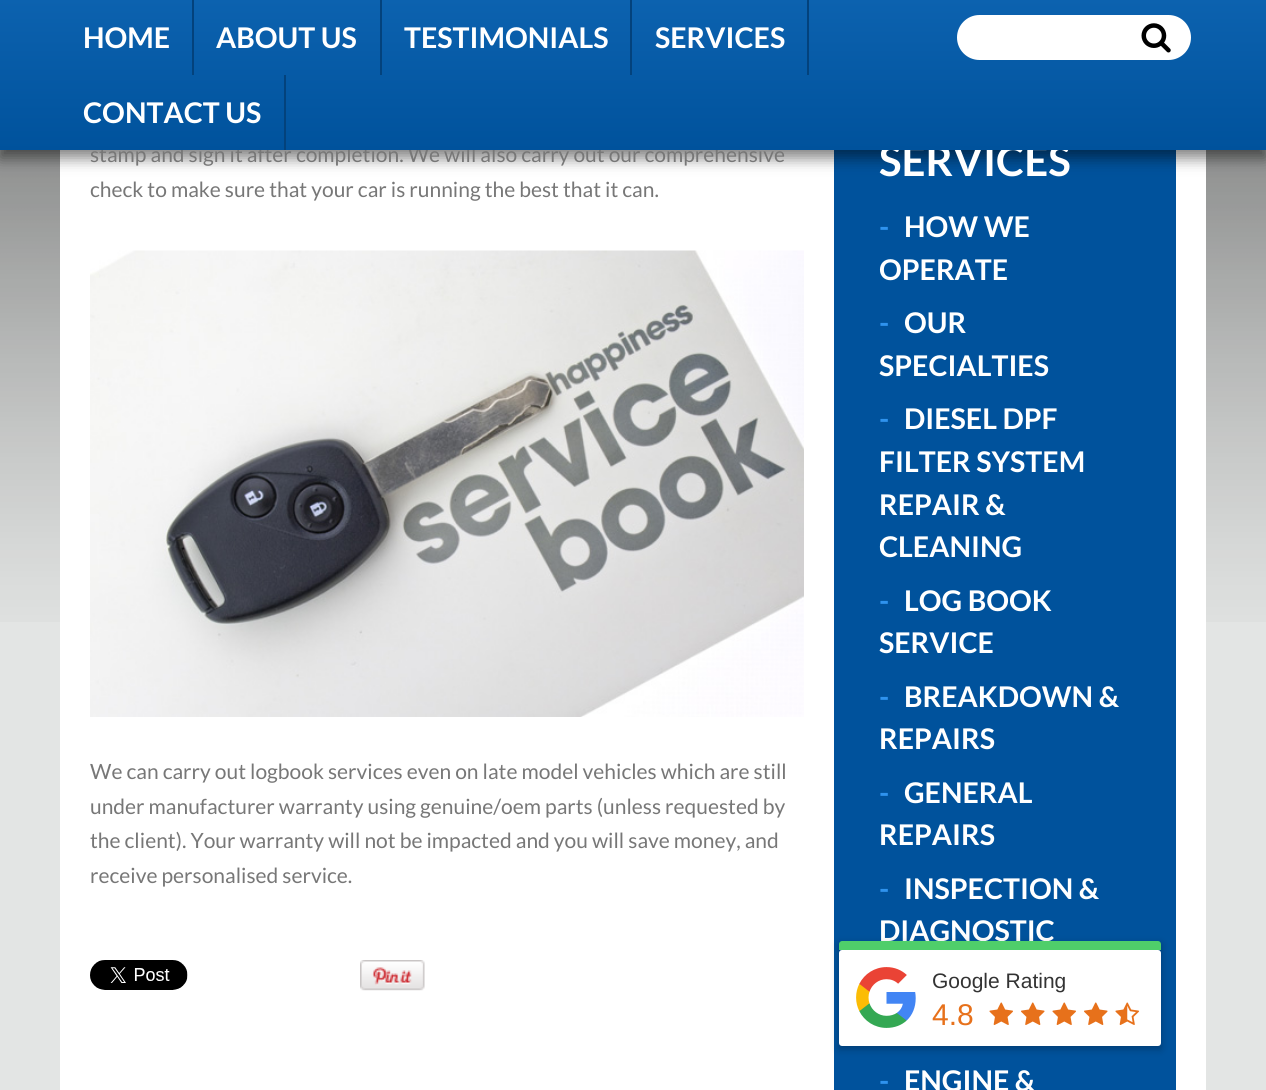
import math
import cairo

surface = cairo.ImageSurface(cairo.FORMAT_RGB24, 1266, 1090)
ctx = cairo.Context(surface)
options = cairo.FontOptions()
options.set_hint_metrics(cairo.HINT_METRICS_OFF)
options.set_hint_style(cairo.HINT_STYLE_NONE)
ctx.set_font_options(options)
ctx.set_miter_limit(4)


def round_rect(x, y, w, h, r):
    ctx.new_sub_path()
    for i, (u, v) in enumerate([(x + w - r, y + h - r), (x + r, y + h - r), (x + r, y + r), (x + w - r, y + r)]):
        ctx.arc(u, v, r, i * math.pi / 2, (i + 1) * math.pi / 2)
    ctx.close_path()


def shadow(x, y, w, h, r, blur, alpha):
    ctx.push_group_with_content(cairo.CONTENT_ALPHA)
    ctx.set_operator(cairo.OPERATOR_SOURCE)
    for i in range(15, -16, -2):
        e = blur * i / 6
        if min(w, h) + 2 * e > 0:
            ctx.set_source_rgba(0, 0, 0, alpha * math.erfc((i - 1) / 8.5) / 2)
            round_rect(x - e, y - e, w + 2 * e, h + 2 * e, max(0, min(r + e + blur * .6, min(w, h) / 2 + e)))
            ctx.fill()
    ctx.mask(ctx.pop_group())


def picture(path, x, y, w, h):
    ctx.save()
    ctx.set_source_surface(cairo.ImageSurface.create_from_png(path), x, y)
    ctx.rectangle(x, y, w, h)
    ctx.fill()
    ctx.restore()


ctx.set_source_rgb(0.89, 0.898, 0.894)
ctx.paint()
picture("img1.png", 0, 150, 1266, 472)
ctx.set_source_rgb(1, 1, 1)
ctx.rectangle(60, 150, 1146, 940)
ctx.fill()
ctx.set_source_rgb(0, 0.322, 0.612)
ctx.rectangle(834, 150, 342, 940)
ctx.fill()
ctx.set_source_rgb(0, 0, 0)
shadow(0, 8, 1266, 150, 0, 7.5, 0.5)
ctx.select_font_face("Lato")
ctx.set_font_size(21)
ctx.set_source_rgb(0.467, 0.467, 0.467)
ctx.move_to(90, 162)
ctx.show_text("stamp and sign it after completion. We will also carry out our comprehensive")
ctx.select_font_face("Lato", cairo.FONT_SLANT_NORMAL, cairo.FONT_WEIGHT_BOLD)
ctx.set_font_size(42)
ctx.set_source_rgb(1, 1, 1)
ctx.move_to(879, 176)
ctx.show_text("SERVICES")
gradient = cairo.LinearGradient(633, 0, 633, 150)
gradient.add_color_stop_rgba(0, 0.047, 0.384, 0.686, 1)
gradient.add_color_stop_rgba(1, 0, 0.322, 0.612, 1)
ctx.set_source(gradient)
ctx.rectangle(60, 0, 1146, 150)
ctx.fill()
gradient = cairo.LinearGradient(-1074, 0, -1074, 150)
gradient.add_color_stop_rgba(0, 0.047, 0.384, 0.686, 1)
gradient.add_color_stop_rgba(1, 0, 0.322, 0.612, 1)
ctx.set_source(gradient)
ctx.rectangle(0, 0, 60, 150)
ctx.fill()
ctx.set_source_rgb(0.012, 0.259, 0.486)
ctx.rectangle(192, 0, 2, 75)
ctx.fill()
ctx.set_font_size(28.5)
ctx.set_source_rgb(1, 1, 1)
ctx.move_to(83, 48)
ctx.show_text("HOME")
ctx.set_source_rgb(0.012, 0.259, 0.486)
ctx.rectangle(380, 0, 2, 75)
ctx.fill()
ctx.set_source_rgb(1, 1, 1)
ctx.move_to(216, 48)
ctx.show_text("ABOUT US")
ctx.set_source_rgb(0.012, 0.259, 0.486)
ctx.rectangle(630, 0, 2, 75)
ctx.fill()
ctx.set_source_rgb(1, 1, 1)
ctx.move_to(404, 48)
ctx.show_text("TESTIMONIALS")
ctx.set_source_rgb(0.012, 0.259, 0.486)
ctx.rectangle(807, 0, 2, 75)
ctx.fill()
ctx.set_source_rgb(1, 1, 1)
ctx.move_to(655, 48)
ctx.show_text("SERVICES")
ctx.set_source_rgb(0.012, 0.259, 0.486)
ctx.rectangle(284, 75, 2, 75)
ctx.fill()
ctx.set_source_rgb(1, 1, 1)
ctx.move_to(83, 123)
ctx.show_text("CONTACT US")
round_rect(957, 15, 234, 45, 22.5)
ctx.fill()
picture("img2.png", 1141, 23, 30, 30)
gradient = cairo.LinearGradient(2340, 0, 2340, 150)
gradient.add_color_stop_rgba(0, 0.047, 0.384, 0.686, 1)
gradient.add_color_stop_rgba(1, 0, 0.322, 0.612, 1)
ctx.set_source(gradient)
ctx.rectangle(1206, 0, 60, 150)
ctx.fill()
ctx.select_font_face("Lato")
ctx.set_font_size(21)
ctx.set_source_rgb(0.467, 0.467, 0.467)
ctx.move_to(90, 197)
ctx.show_text("check to make sure that your car is running the best that it can.")
picture("img3.png", 90, 250, 714, 467)
ctx.move_to(90, 779)
ctx.show_text("We can carry out logbook services even on late model vehicles which are still")
ctx.move_to(90, 814)
ctx.show_text("under manufacturer warranty using genuine/oem parts (unless requested by")
ctx.move_to(90, 848)
ctx.show_text("the client). Your warranty will not be impacted and you will save money, and")
ctx.move_to(90, 883)
ctx.show_text("receive personalised service.")
picture("img4.png", 90, 960, 98, 30)
picture("img5.png", 360, 960, 65, 31)
ctx.select_font_face("Lato", cairo.FONT_SLANT_NORMAL, cairo.FONT_WEIGHT_BOLD)
ctx.set_font_size(28.5)
ctx.set_source_rgb(0.184, 0.576, 0.933)
ctx.move_to(879, 237)
ctx.show_text("-")
ctx.set_source_rgb(1, 1, 1)
ctx.move_to(904, 237)
ctx.show_text("HOW WE")
ctx.move_to(879, 280)
ctx.show_text("OPERATE")
ctx.set_source_rgb(0.184, 0.576, 0.933)
ctx.move_to(879, 333)
ctx.show_text("-")
ctx.set_source_rgb(1, 1, 1)
ctx.move_to(904, 333)
ctx.show_text("OUR")
ctx.move_to(879, 376)
ctx.show_text("SPECIALTIES")
ctx.set_source_rgb(0.184, 0.576, 0.933)
ctx.move_to(879, 429)
ctx.show_text("-")
ctx.set_source_rgb(1, 1, 1)
ctx.move_to(904, 429)
ctx.show_text("DIESEL DPF")
ctx.move_to(879, 472)
ctx.show_text("FILTER SYSTEM")
ctx.move_to(879, 515)
ctx.show_text("REPAIR &")
ctx.move_to(879, 557)
ctx.show_text("CLEANING")
ctx.set_source_rgb(0.184, 0.576, 0.933)
ctx.move_to(879, 611)
ctx.show_text("-")
ctx.set_source_rgb(1, 1, 1)
ctx.move_to(904, 611)
ctx.show_text("LOG BOOK")
ctx.move_to(879, 653)
ctx.show_text("SERVICE")
ctx.set_source_rgb(0.184, 0.576, 0.933)
ctx.move_to(879, 707)
ctx.show_text("-")
ctx.set_source_rgb(1, 1, 1)
ctx.move_to(904, 707)
ctx.show_text("BREAKDOWN &")
ctx.move_to(879, 749)
ctx.show_text("REPAIRS")
ctx.set_source_rgb(0.184, 0.576, 0.933)
ctx.move_to(879, 803)
ctx.show_text("-")
ctx.set_source_rgb(1, 1, 1)
ctx.move_to(904, 803)
ctx.show_text("GENERAL")
ctx.move_to(879, 845)
ctx.show_text("REPAIRS")
ctx.set_source_rgb(0.184, 0.576, 0.933)
ctx.move_to(879, 899)
ctx.show_text("-")
ctx.set_source_rgb(1, 1, 1)
ctx.move_to(904, 899)
ctx.show_text("INSPECTION &")
ctx.move_to(879, 941)
ctx.show_text("DIAGNOSTIC")
ctx.set_source_rgb(0.184, 0.576, 0.933)
ctx.move_to(879, 1091)
ctx.show_text("-")
ctx.set_source_rgb(1, 1, 1)
ctx.move_to(904, 1091)
ctx.show_text("ENGINE &")
ctx.set_source_rgb(0, 0, 0)
shadow(839, 944, 322, 105, 0, 4, 0.26)
ctx.set_source_rgb(0.31, 0.808, 0.416)
ctx.new_path()
ctx.move_to(842, 941)
ctx.line_to(1158, 941)
ctx.curve_to(1159.5, 941, 1161, 942.5, 1161, 944)
ctx.line_to(1161, 950)
ctx.line_to(839, 950)
ctx.line_to(839, 944)
ctx.curve_to(839, 942.5, 840.5, 941, 842, 941)
ctx.close_path()
ctx.fill()
ctx.set_source_rgb(1, 1, 1)
round_rect(839, 950, 322, 96, 3)
ctx.fill()
picture("img6.png", 856, 967, 60, 61)
ctx.select_font_face("Liberation Sans")
ctx.set_font_size(21)
ctx.set_source_rgb(0.2, 0.2, 0.2)
ctx.move_to(932, 988)
ctx.show_text("Google Rating")
ctx.set_font_size(30)
ctx.set_source_rgb(0.906, 0.443, 0.106)
ctx.move_to(932, 1025)
ctx.show_text("4.8")
picture("img7.png", 989, 1002, 24, 23)
picture("img8.png", 1021, 1002, 24, 23)
picture("img7.png", 1052, 1002, 24, 23)
picture("img8.png", 1084, 1002, 24, 23)
picture("img9.png", 1115, 1002, 25, 23)
surface.write_to_png("page.png")
